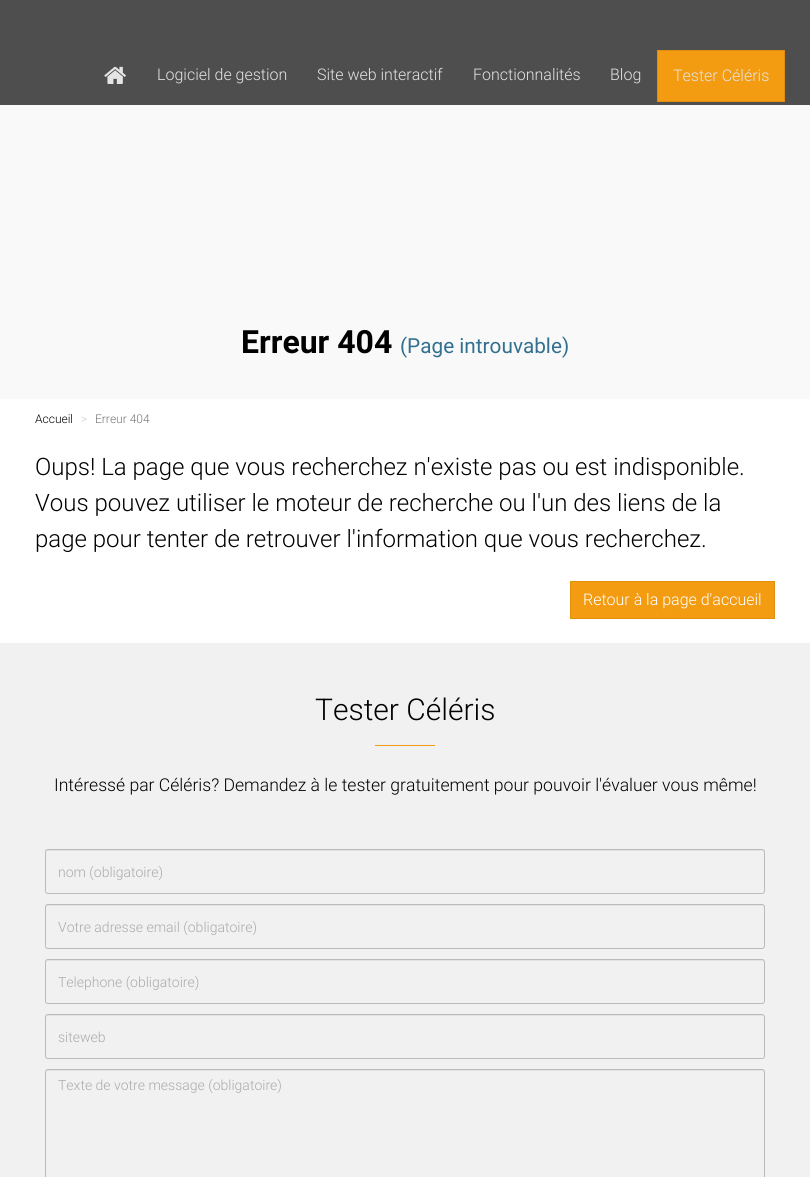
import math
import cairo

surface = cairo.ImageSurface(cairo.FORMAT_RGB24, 810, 1177)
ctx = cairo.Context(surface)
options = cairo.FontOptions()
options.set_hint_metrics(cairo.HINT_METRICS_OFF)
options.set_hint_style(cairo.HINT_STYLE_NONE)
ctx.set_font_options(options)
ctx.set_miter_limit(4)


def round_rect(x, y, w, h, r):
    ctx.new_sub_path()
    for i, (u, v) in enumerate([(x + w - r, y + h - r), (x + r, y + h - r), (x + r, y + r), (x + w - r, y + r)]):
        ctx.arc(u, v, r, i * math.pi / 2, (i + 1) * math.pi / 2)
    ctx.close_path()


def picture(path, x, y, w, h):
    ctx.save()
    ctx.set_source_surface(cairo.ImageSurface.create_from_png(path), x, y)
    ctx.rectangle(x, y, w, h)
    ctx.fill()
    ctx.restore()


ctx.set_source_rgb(1, 1, 1)
ctx.paint()
ctx.set_source_rgb(0.306, 0.306, 0.306)
ctx.rectangle(0, 0, 810, 105)
ctx.fill()
picture("img1.png", 104, 66, 22, 18)
ctx.select_font_face("Roboto Light")
ctx.set_font_size(16)
ctx.set_source_rgb(0.894, 0.894, 0.894)
ctx.move_to(157, 80)
ctx.show_text("Logiciel de gestion")
ctx.move_to(317, 80)
ctx.show_text("Site web interactif")
ctx.move_to(473, 80)
ctx.show_text("Fonctionnalités")
ctx.move_to(610, 80)
ctx.show_text("Blog")
ctx.set_source_rgb(0.953, 0.612, 0.071)
ctx.rectangle(657.5, 50.5, 127, 51)
ctx.fill_preserve()
ctx.set_source_rgb(0.878, 0.557, 0.043)
ctx.set_line_width(1)
ctx.stroke()
ctx.set_source_rgb(0.894, 0.894, 0.894)
ctx.move_to(673, 81)
ctx.show_text("Tester Céléris")
ctx.set_source_rgb(0.976, 0.976, 0.976)
ctx.rectangle(0, 105, 810, 294)
ctx.fill()
ctx.select_font_face("Roboto", cairo.FONT_SLANT_NORMAL, cairo.FONT_WEIGHT_BOLD)
ctx.set_font_size(32)
ctx.set_source_rgb(0, 0, 0)
ctx.move_to(241, 353)
ctx.show_text("Erreur 404")
ctx.select_font_face("Roboto")
ctx.set_font_size(20.75)
ctx.set_source_rgb(0.192, 0.439, 0.561)
ctx.move_to(400, 353)
ctx.show_text("(Page introuvable)")
ctx.select_font_face("Roboto Light")
ctx.set_font_size(12)
ctx.set_source_rgb(0, 0, 0)
ctx.move_to(35, 423)
ctx.show_text("Accueil")
ctx.set_source_rgb(0.8, 0.8, 0.8)
ctx.move_to(81, 423)
ctx.show_text(">")
ctx.set_source_rgb(0.467, 0.467, 0.467)
ctx.move_to(95, 423)
ctx.show_text("Erreur 404")
ctx.set_font_size(24)
ctx.set_source_rgb(0, 0, 0)
ctx.move_to(35, 475)
ctx.show_text("Oups! La page que vous recherchez n'existe pas ou est indisponible.")
ctx.move_to(35, 511)
ctx.show_text("Vous pouvez utiliser le moteur de recherche ou l'un des liens de la")
ctx.move_to(35, 547)
ctx.show_text("page pour tenter de retrouver l'information que vous recherchez.")
ctx.set_source_rgb(0.953, 0.612, 0.071)
ctx.rectangle(570.5, 581.5, 204, 37)
ctx.fill_preserve()
ctx.set_source_rgb(0.878, 0.557, 0.043)
ctx.stroke()
ctx.set_font_size(16)
ctx.set_source_rgb(1, 1, 1)
ctx.move_to(583, 605)
ctx.show_text("Retour à la page d'accueil")
ctx.set_source_rgb(0.945, 0.945, 0.945)
ctx.rectangle(0, 643, 810, 534)
ctx.fill()
ctx.set_font_size(30)
ctx.set_source_rgb(0, 0, 0)
ctx.move_to(315, 720)
ctx.show_text("Tester Céléris")
ctx.set_source_rgb(0.953, 0.612, 0.071)
ctx.rectangle(375, 745, 60, 1)
ctx.fill()
ctx.set_font_size(17.6)
ctx.set_source_rgb(0, 0, 0)
ctx.move_to(54, 791)
ctx.show_text("Intéressé par Céléris? Demandez à le tester gratuitement pour pouvoir l'évaluer vous même!")
ctx.set_source_rgb(0.89, 0.89, 0.89)
ctx.new_path()
ctx.move_to(48, 851)
ctx.line_to(762, 851)
ctx.curve_to(763, 851, 764, 852, 764, 853)
ctx.curve_to(764, 852, 764, 850, 762, 850)
ctx.line_to(48, 850)
ctx.curve_to(46, 850, 46, 852, 46, 853)
ctx.curve_to(46, 852, 47, 851, 48, 851)
ctx.close_path()
ctx.fill()
round_rect(45.5, 849.5, 719, 44, 2.5)
ctx.set_source_rgb(0.733, 0.733, 0.733)
ctx.stroke()
ctx.set_font_size(14)
ctx.set_source_rgb(0.671, 0.671, 0.671)
ctx.move_to(58, 877)
ctx.show_text("nom (obligatoire)")
ctx.set_source_rgb(0.89, 0.89, 0.89)
ctx.new_path()
ctx.move_to(48, 906)
ctx.line_to(762, 906)
ctx.curve_to(763, 906, 764, 907, 764, 908)
ctx.curve_to(764, 907, 764, 905, 762, 905)
ctx.line_to(48, 905)
ctx.curve_to(46, 905, 46, 907, 46, 908)
ctx.curve_to(46, 907, 47, 906, 48, 906)
ctx.close_path()
ctx.fill()
round_rect(45.5, 904.5, 719, 44, 2.5)
ctx.set_source_rgb(0.733, 0.733, 0.733)
ctx.stroke()
ctx.set_source_rgb(0.671, 0.671, 0.671)
ctx.move_to(58, 932)
ctx.show_text("Votre adresse email (obligatoire)")
ctx.set_source_rgb(0.89, 0.89, 0.89)
ctx.new_path()
ctx.move_to(48, 961)
ctx.line_to(762, 961)
ctx.curve_to(763, 961, 764, 962, 764, 963)
ctx.curve_to(764, 962, 764, 960, 762, 960)
ctx.line_to(48, 960)
ctx.curve_to(46, 960, 46, 962, 46, 963)
ctx.curve_to(46, 962, 47, 961, 48, 961)
ctx.close_path()
ctx.fill()
round_rect(45.5, 959.5, 719, 44, 2.5)
ctx.set_source_rgb(0.733, 0.733, 0.733)
ctx.stroke()
ctx.set_source_rgb(0.671, 0.671, 0.671)
ctx.move_to(58, 987)
ctx.show_text("Telephone (obligatoire)")
ctx.set_source_rgb(0.89, 0.89, 0.89)
ctx.new_path()
ctx.move_to(48, 1016)
ctx.line_to(762, 1016)
ctx.curve_to(763, 1016, 764, 1017, 764, 1018)
ctx.curve_to(764, 1017, 764, 1015, 762, 1015)
ctx.line_to(48, 1015)
ctx.curve_to(46, 1015, 46, 1017, 46, 1018)
ctx.curve_to(46, 1017, 47, 1016, 48, 1016)
ctx.close_path()
ctx.fill()
round_rect(45.5, 1014.5, 719, 44, 2.5)
ctx.set_source_rgb(0.733, 0.733, 0.733)
ctx.stroke()
ctx.set_source_rgb(0.671, 0.671, 0.671)
ctx.move_to(58, 1042)
ctx.show_text("siteweb")
ctx.set_source_rgb(0.89, 0.89, 0.89)
ctx.new_path()
ctx.move_to(48, 1071)
ctx.line_to(762, 1071)
ctx.curve_to(763, 1071, 764, 1072, 764, 1073)
ctx.curve_to(764, 1072, 764, 1070, 762, 1070)
ctx.line_to(48, 1070)
ctx.curve_to(46, 1070, 46, 1072, 46, 1073)
ctx.curve_to(46, 1072, 47, 1071, 48, 1071)
ctx.close_path()
ctx.fill()
round_rect(45.5, 1069.5, 719, 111, 2.5)
ctx.set_source_rgb(0.733, 0.733, 0.733)
ctx.stroke()
ctx.set_source_rgb(0.671, 0.671, 0.671)
ctx.move_to(58, 1090)
ctx.show_text("Texte de votre message (obligatoire)")
surface.write_to_png("page.png")
